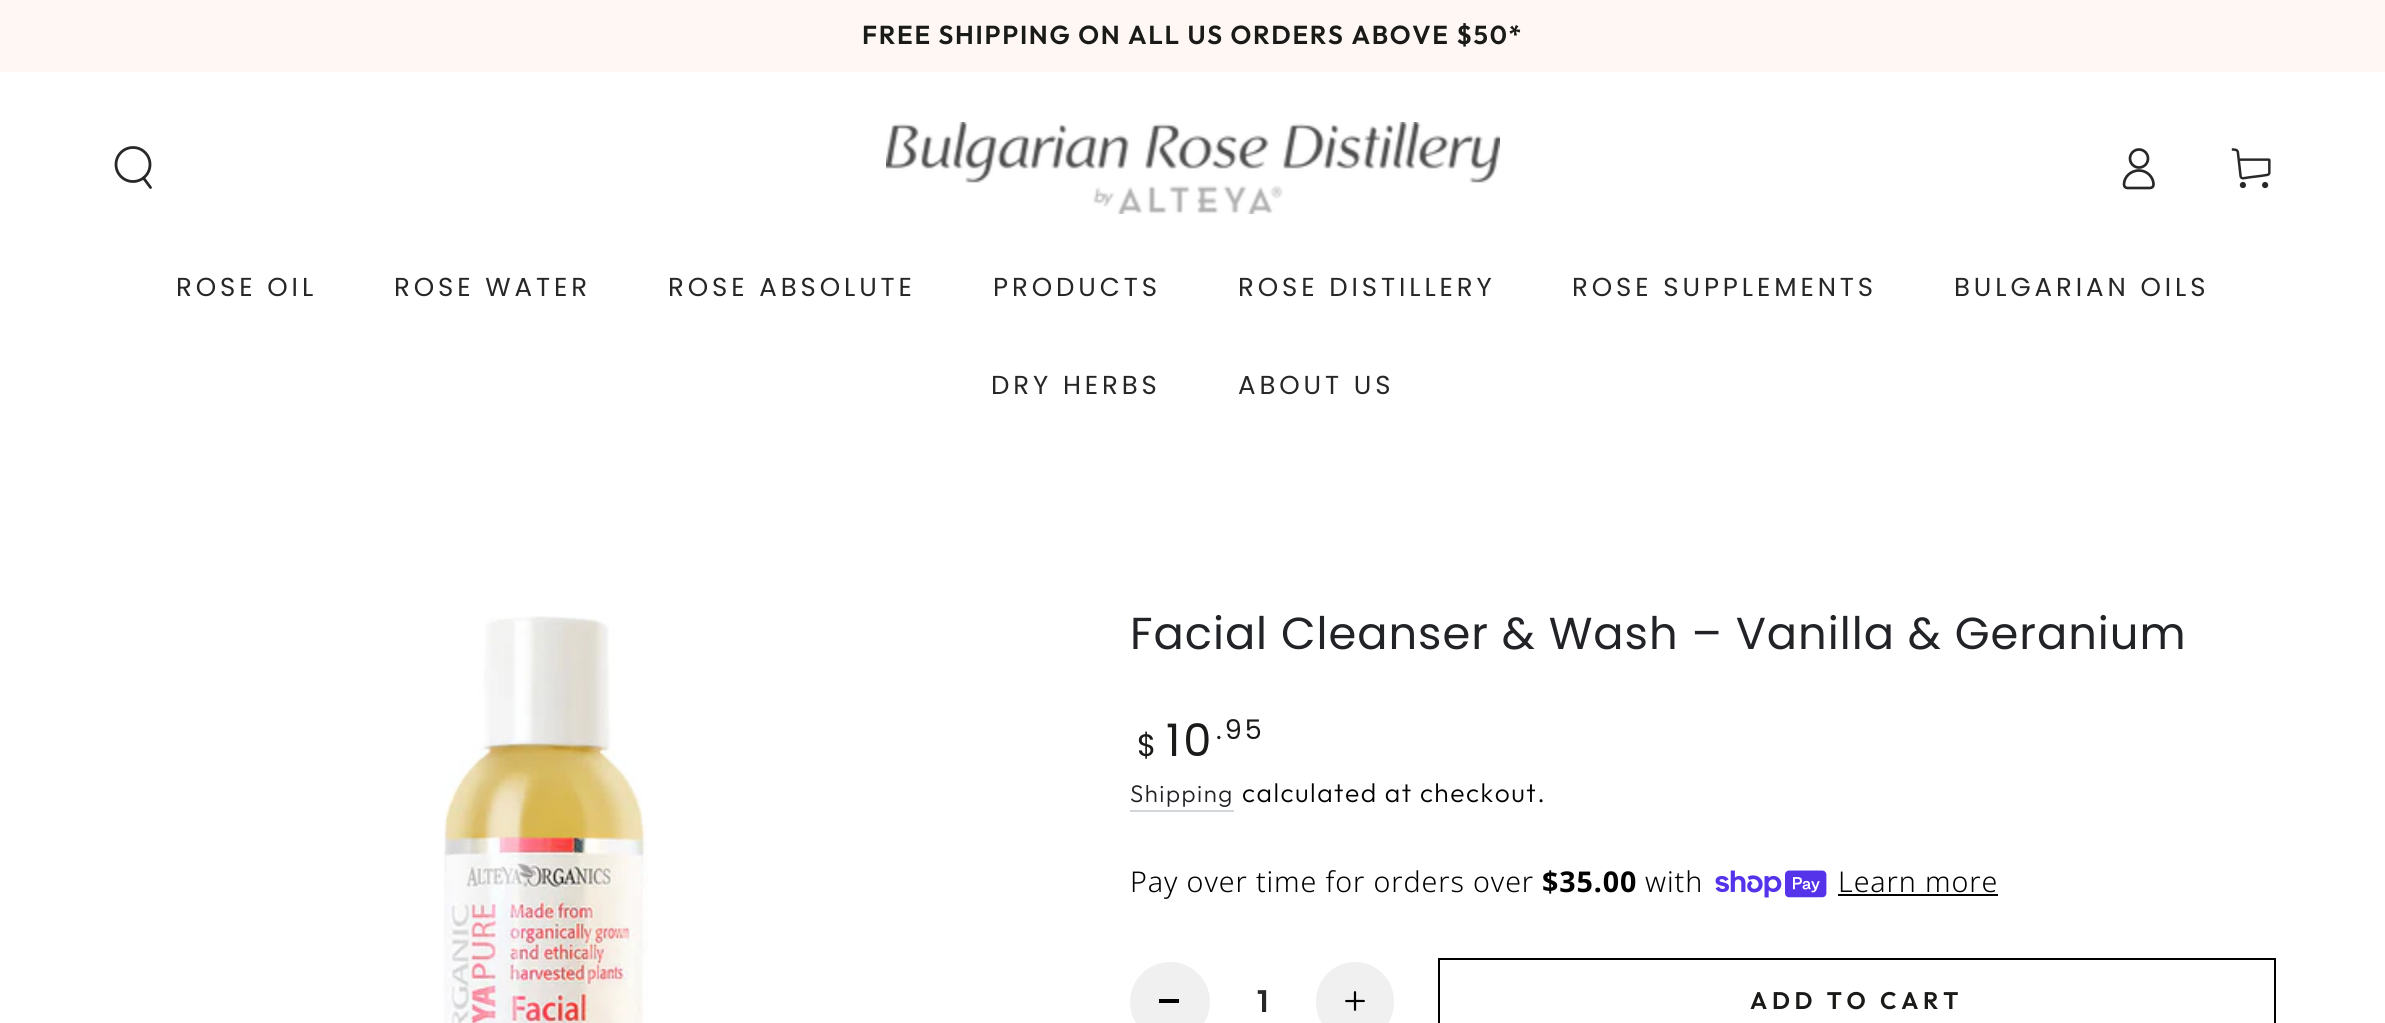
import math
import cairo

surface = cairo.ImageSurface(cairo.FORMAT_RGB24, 2385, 1023)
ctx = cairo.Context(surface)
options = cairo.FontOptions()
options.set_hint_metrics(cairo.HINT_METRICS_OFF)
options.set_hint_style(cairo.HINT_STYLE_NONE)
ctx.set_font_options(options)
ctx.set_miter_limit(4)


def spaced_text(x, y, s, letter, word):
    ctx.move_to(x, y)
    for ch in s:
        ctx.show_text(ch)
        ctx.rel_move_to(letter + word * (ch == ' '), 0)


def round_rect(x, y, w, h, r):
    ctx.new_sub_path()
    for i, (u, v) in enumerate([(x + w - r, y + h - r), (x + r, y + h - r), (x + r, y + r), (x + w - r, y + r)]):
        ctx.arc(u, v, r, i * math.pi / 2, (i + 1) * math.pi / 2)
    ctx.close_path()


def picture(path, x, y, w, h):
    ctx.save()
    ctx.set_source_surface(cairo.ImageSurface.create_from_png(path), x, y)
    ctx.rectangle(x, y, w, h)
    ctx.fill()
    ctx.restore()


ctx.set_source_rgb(1, 1, 1)
ctx.paint()
ctx.set_source_rgb(0.996, 0.965, 0.953)
ctx.rectangle(0, 0, 2385, 72)
ctx.fill()
ctx.select_font_face("Outfit SemiBold")
ctx.set_font_size(26)
ctx.set_source_rgb(0.102, 0.106, 0.094)
spaced_text(862, 44, "FREE SHIPPING ON ALL US ORDERS ABOVE $50*", 1.7, 0)
ctx.new_path()
ctx.arc(133, 164.5, 17, 0, 2 * math.pi)
ctx.set_source_rgb(0.157, 0.157, 0.157)
ctx.set_line_width(2.8)
ctx.stroke()
ctx.new_path()
ctx.move_to(143.5, 178)
ctx.line_to(150.5, 187.5)
ctx.set_line_cap(cairo.LINE_CAP_ROUND)
ctx.stroke()
picture("img1.png", 886, 122, 614, 92)
ctx.new_path()
ctx.move_to(2139, 170.5)
ctx.curve_to(2130.5, 170.5, 2124, 177, 2124, 184.5)
ctx.curve_to(2124, 186.5, 2125.5, 188, 2127.5, 188)
ctx.line_to(2150, 188)
ctx.curve_to(2152, 188, 2153.5, 186.5, 2153.5, 184.5)
ctx.curve_to(2153.5, 177, 2147, 170.5, 2139, 170.5)
ctx.close_path()
ctx.set_line_width(2.7)
ctx.set_line_cap(cairo.LINE_CAP_BUTT)
ctx.stroke()
ctx.arc(2139, 158.5, 9, 0, 2 * math.pi)
ctx.stroke()
picture("img2.png", 2231, 148, 40, 41)
ctx.select_font_face("Poppins")
ctx.set_source_rgb(0.153, 0.153, 0.153)
spaced_text(176, 296, "ROSE OIL", 3.9, 0)
spaced_text(394, 296, "ROSE WATER", 3.9, 0)
spaced_text(668, 296, "ROSE ABSOLUTE", 3.9, 0)
spaced_text(993, 296, "PRODUCTS", 3.9, 0)
spaced_text(1238, 296, "ROSE DISTILLERY", 3.9, 0)
spaced_text(1572, 296, "ROSE SUPPLEMENTS", 3.9, 0)
spaced_text(1954, 296, "BULGARIAN OILS", 3.9, 0)
spaced_text(991, 394, "DRY HERBS", 3.9, 0)
spaced_text(1238, 394, "ABOUT US", 3.9, 0)
picture("img3.png", 443, 616, 205, 407)
ctx.set_font_size(44.8)
ctx.set_source_rgb(0.129, 0.137, 0.149)
spaced_text(1130, 649, "Facial Cleanser & Wash – Vanilla & Geranium", 0.95, 0)
ctx.set_font_size(31)
ctx.set_source_rgb(0.102, 0.106, 0.094)
spaced_text(1137, 756, "$", 3, 0)
ctx.set_font_size(44.8)
spaced_text(1166, 756, "10", 3, 0)
ctx.set_font_size(27)
spaced_text(1216, 739, ".95", 3, 0)
ctx.select_font_face("Outfit Light")
ctx.set_font_size(24)
ctx.set_source_rgb(0.129, 0.137, 0.149)
spaced_text(1130, 802, "Shipping", 1.5, 0)
ctx.set_source_rgb(0.824, 0.835, 0.851)
ctx.rectangle(1130, 810, 104, 2)
ctx.fill()
ctx.set_font_size(26.4)
ctx.set_source_rgb(0.004, 0.004, 0.004)
spaced_text(1242, 802, "calculated at checkout.", 1.5, 0)
ctx.select_font_face("Noto Sans Light")
ctx.set_font_size(28.6)
spaced_text(1130, 892, "Pay over time for orders over", 0.9, 0)
ctx.select_font_face("Noto Sans", cairo.FONT_SLANT_NORMAL, cairo.FONT_WEIGHT_BOLD)
spaced_text(1542, 892, "$35.00", 0.9, 0)
ctx.select_font_face("Noto Sans Light")
spaced_text(1645, 892, "with", 0.9, 0)
picture("img4.png", 1715, 870, 112, 28)
spaced_text(1838, 892, "Learn more", 0.9, 0)
ctx.rectangle(1838, 894, 160, 2)
ctx.fill()
ctx.set_source_rgb(0.941, 0.941, 0.941)
ctx.arc(1170, 1002, 40, 0, 2 * math.pi)
ctx.fill()
ctx.set_source_rgb(0.004, 0.004, 0.004)
ctx.rectangle(1159, 999, 20, 4)
ctx.fill()
ctx.select_font_face("Outfit SemiBold")
ctx.set_font_size(31)
ctx.set_source_rgb(0.153, 0.153, 0.153)
ctx.move_to(1257, 1012)
ctx.show_text("1")
ctx.set_source_rgb(0.941, 0.941, 0.941)
round_rect(1316, 962, 78, 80, 39)
ctx.fill()
picture("img5.png", 1345, 991, 20, 20)
ctx.rectangle(1439, 959, 836, 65)
ctx.set_source_rgb(0, 0, 0)
ctx.set_line_width(2)
ctx.stroke()
ctx.set_font_size(24)
ctx.set_source_rgb(0.102, 0.106, 0.094)
spaced_text(1750, 1009, "ADD TO CART", 4.75, 0)
surface.write_to_png("page.png")
